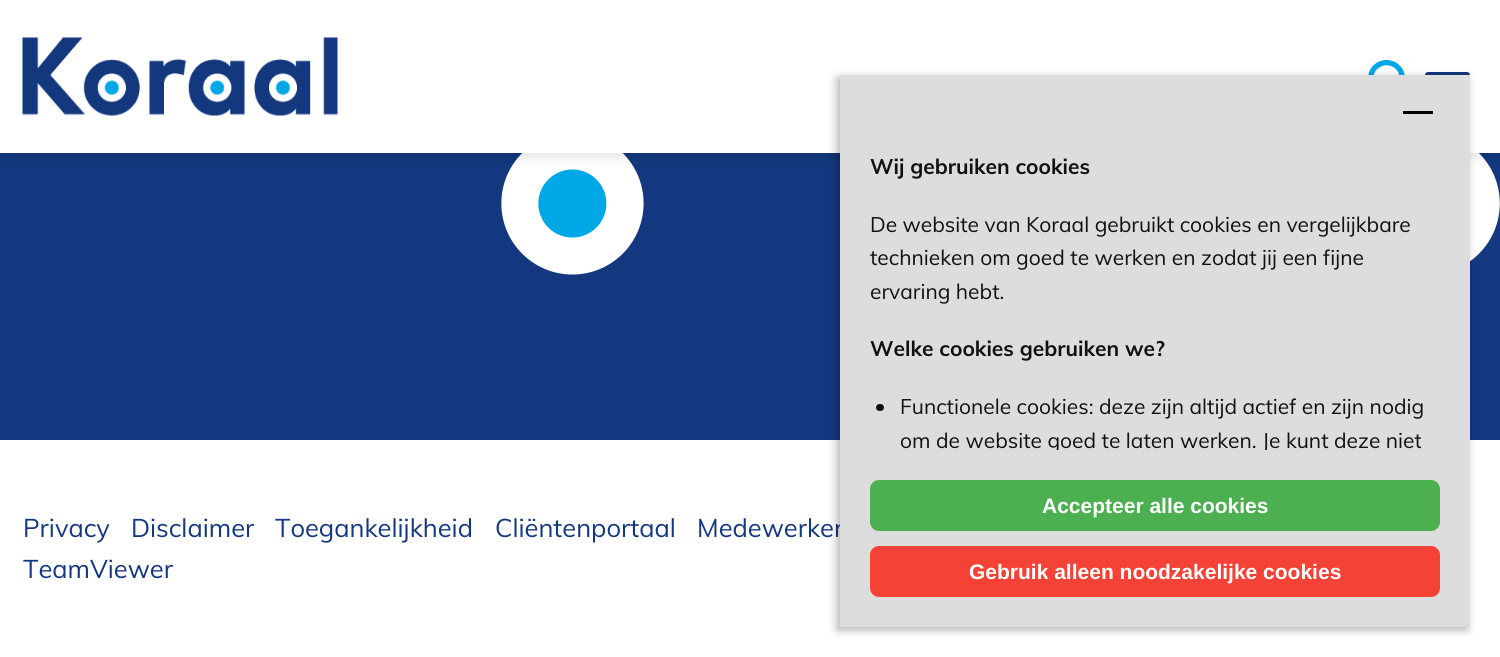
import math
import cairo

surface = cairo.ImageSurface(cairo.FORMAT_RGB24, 1500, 657)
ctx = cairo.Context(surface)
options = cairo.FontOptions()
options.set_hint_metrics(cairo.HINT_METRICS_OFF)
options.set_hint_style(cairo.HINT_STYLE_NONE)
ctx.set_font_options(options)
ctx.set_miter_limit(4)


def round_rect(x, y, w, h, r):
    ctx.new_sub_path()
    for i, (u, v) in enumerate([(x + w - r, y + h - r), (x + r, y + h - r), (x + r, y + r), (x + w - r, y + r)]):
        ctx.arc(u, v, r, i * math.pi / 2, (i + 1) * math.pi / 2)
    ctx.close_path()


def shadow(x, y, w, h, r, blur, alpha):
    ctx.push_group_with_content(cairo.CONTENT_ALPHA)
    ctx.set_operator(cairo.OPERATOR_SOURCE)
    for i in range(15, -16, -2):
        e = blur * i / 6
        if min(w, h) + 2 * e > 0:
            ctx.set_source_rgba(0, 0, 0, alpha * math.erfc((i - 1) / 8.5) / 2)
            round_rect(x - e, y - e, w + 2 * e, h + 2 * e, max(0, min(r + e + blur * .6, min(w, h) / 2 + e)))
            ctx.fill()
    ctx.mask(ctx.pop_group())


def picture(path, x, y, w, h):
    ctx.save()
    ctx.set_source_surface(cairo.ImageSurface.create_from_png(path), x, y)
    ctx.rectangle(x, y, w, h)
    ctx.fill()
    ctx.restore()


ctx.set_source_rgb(1, 1, 1)
ctx.paint()
ctx.set_source_rgb(0.078, 0.22, 0.498)
ctx.rectangle(0, 153, 1500, 287)
ctx.fill()
picture("img3.png", 501, 153, 999, 122)
ctx.set_source_rgb(0, 0, 0)
shadow(0, 5, 1500, 153, 0, 4.5, 0.1)
ctx.set_source_rgb(1, 1, 1)
ctx.rectangle(0, 0, 1500, 153)
ctx.fill()
picture("img1.png", 22, 37, 316, 79)
picture("img2.png", 1368, 60, 37, 15)
ctx.set_source_rgb(0.078, 0.22, 0.498)
round_rect(1425, 72, 45, 6, 3)
ctx.fill()
ctx.select_font_face("Muli")
ctx.set_font_size(25.5)
ctx.move_to(23, 537)
ctx.show_text("Privacy")
ctx.move_to(131, 537)
ctx.show_text("Disclaimer")
ctx.move_to(275, 537)
ctx.show_text("Toegankelijkheid")
ctx.move_to(495, 537)
ctx.show_text("Cliëntenportaal")
ctx.move_to(697, 537)
ctx.show_text("Medewerker")
ctx.move_to(23, 578)
ctx.show_text("TeamViewer")
ctx.set_source_rgb(0, 0, 0)
shadow(837, 78, 630, 552, 0, 4.5, 0.3)
ctx.set_source_rgb(0.867, 0.867, 0.867)
ctx.rectangle(840, 75, 630, 552)
ctx.fill()
ctx.set_source_rgb(0, 0, 0)
ctx.rectangle(1403, 111, 30, 3)
ctx.fill()
ctx.select_font_face("Muli", cairo.FONT_SLANT_NORMAL, cairo.FONT_WEIGHT_BOLD)
ctx.set_font_size(21)
ctx.set_source_rgb(0.067, 0.067, 0.067)
ctx.move_to(870, 174)
ctx.show_text("Wij gebruiken cookies")
ctx.select_font_face("Muli")
ctx.move_to(870, 232)
ctx.show_text("De website van Koraal gebruikt cookies en vergelijkbare")
ctx.move_to(870, 265)
ctx.show_text("technieken om goed te werken en zodat jij een fijne")
ctx.move_to(870, 299)
ctx.show_text("ervaring hebt.")
ctx.select_font_face("Muli", cairo.FONT_SLANT_NORMAL, cairo.FONT_WEIGHT_BOLD)
ctx.move_to(870, 356)
ctx.show_text("Welke cookies gebruiken we?")
round_rect(876, 404, 8, 7, 3.5)
ctx.fill()
ctx.select_font_face("Muli")
ctx.move_to(900, 414)
ctx.show_text("Functionele cookies: deze zijn altijd actief en zijn nodig")
ctx.save()
ctx.rectangle(870, 150, 570, 300)
ctx.clip()
ctx.move_to(900, 448)
ctx.show_text("om de website goed te laten werken. Je kunt deze niet")
ctx.restore()
ctx.set_source_rgb(0.298, 0.686, 0.314)
round_rect(870, 480, 570, 51, 9)
ctx.fill()
ctx.select_font_face("Liberation Sans", cairo.FONT_SLANT_NORMAL, cairo.FONT_WEIGHT_BOLD)
ctx.set_source_rgb(1, 1, 1)
ctx.move_to(1042, 513)
ctx.show_text("Accepteer alle cookies")
ctx.set_source_rgb(0.957, 0.263, 0.212)
round_rect(870, 546, 570, 51, 9)
ctx.fill()
ctx.set_source_rgb(1, 1, 1)
ctx.move_to(969, 579)
ctx.show_text("Gebruik alleen noodzakelijke cookies")
surface.write_to_png("page.png")
